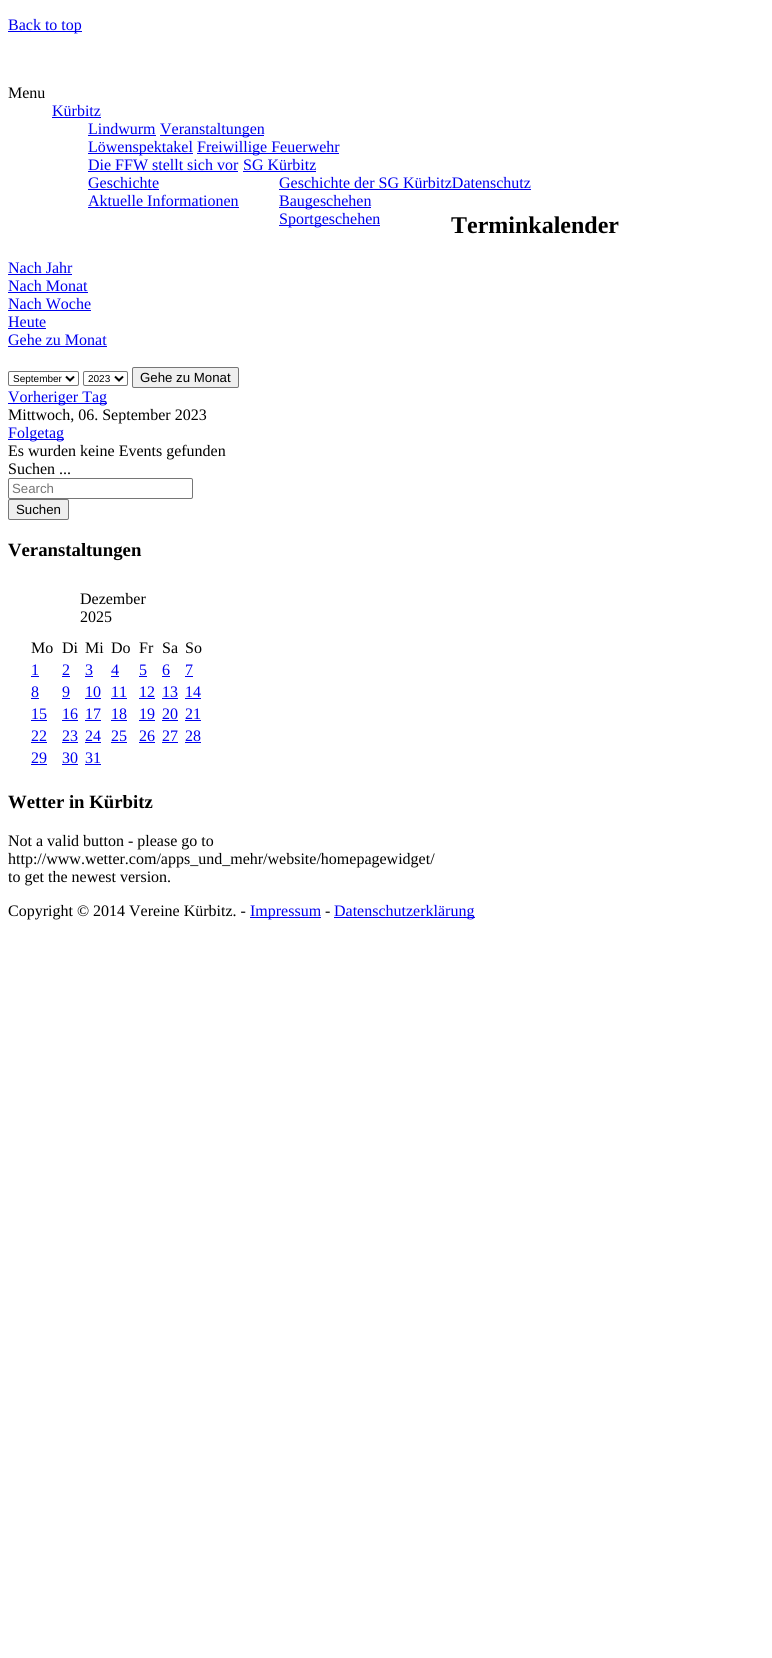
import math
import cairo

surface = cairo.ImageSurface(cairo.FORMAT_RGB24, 772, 1658)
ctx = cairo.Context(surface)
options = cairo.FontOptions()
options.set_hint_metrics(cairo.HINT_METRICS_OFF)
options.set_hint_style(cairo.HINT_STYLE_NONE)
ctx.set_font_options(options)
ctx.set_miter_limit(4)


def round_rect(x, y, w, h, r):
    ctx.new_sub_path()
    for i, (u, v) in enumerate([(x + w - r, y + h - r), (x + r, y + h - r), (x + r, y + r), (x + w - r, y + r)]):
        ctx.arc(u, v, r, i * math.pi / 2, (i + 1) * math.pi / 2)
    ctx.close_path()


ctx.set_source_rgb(1, 1, 1)
ctx.paint()
ctx.set_source_rgb(0, 0, 0.933)
ctx.rectangle(8, 31, 74, 1)
ctx.fill()
ctx.select_font_face("Liberation Serif")
ctx.set_font_size(16)
ctx.move_to(8, 30)
ctx.show_text("Back to top")
ctx.set_source_rgb(0, 0, 0)
ctx.move_to(8, 98)
ctx.show_text("Menu")
ctx.set_source_rgb(0, 0, 0.933)
ctx.move_to(52, 116)
ctx.show_text("Kürbitz")
ctx.rectangle(52, 117, 49, 1)
ctx.fill()
ctx.move_to(88, 134)
ctx.show_text("Lindwurm")
ctx.rectangle(88, 135, 68, 1)
ctx.fill()
ctx.rectangle(160, 135, 104, 1)
ctx.fill()
ctx.move_to(160, 134)
ctx.show_text("Veranstaltungen")
ctx.rectangle(88, 153, 105, 1)
ctx.fill()
ctx.move_to(88, 152)
ctx.show_text("Löwenspektakel")
ctx.rectangle(197, 153, 142, 1)
ctx.fill()
ctx.move_to(197, 152)
ctx.show_text("Freiwillige Feuerwehr")
ctx.move_to(88, 170)
ctx.show_text("Die FFW stellt sich vor")
ctx.rectangle(88, 171, 150, 1)
ctx.fill()
ctx.move_to(88, 188)
ctx.show_text("Geschichte")
ctx.rectangle(88, 189, 71, 1)
ctx.fill()
ctx.move_to(88, 206)
ctx.show_text("Aktuelle Informationen")
ctx.rectangle(88, 207, 151, 1)
ctx.fill()
ctx.move_to(243, 170)
ctx.show_text("SG Kürbitz")
ctx.rectangle(243, 171, 73, 1)
ctx.fill()
ctx.move_to(279, 188)
ctx.show_text("Geschichte der SG KürbitzDatenschutz")
ctx.rectangle(279, 189, 252, 1)
ctx.fill()
ctx.rectangle(279, 207, 92, 1)
ctx.fill()
ctx.move_to(279, 206)
ctx.show_text("Baugeschehen")
ctx.rectangle(279, 225, 101, 1)
ctx.fill()
ctx.move_to(279, 224)
ctx.show_text("Sportgeschehen")
ctx.select_font_face("Liberation Serif", cairo.FONT_SLANT_NORMAL, cairo.FONT_WEIGHT_BOLD)
ctx.set_font_size(24)
ctx.set_source_rgb(0, 0, 0)
ctx.move_to(451, 233)
ctx.show_text("Terminkalender")
ctx.select_font_face("Liberation Serif")
ctx.set_font_size(16)
ctx.set_source_rgb(0, 0, 0.933)
ctx.move_to(8, 273)
ctx.show_text("Nach Jahr")
ctx.rectangle(8, 274, 64, 1)
ctx.fill()
ctx.move_to(8, 291)
ctx.show_text("Nach Monat")
ctx.rectangle(8, 292, 80, 1)
ctx.fill()
ctx.move_to(8, 309)
ctx.show_text("Nach Woche")
ctx.rectangle(8, 310, 83, 1)
ctx.fill()
ctx.move_to(8, 327)
ctx.show_text("Heute")
ctx.rectangle(8, 328, 38, 1)
ctx.fill()
ctx.move_to(8, 345)
ctx.show_text("Gehe zu Monat")
ctx.rectangle(8, 346, 99, 1)
ctx.fill()
round_rect(8.5, 371.5, 70, 14, 1.5)
ctx.set_source_rgb(0.463, 0.463, 0.463)
ctx.set_line_width(1)
ctx.stroke()
ctx.new_path()
ctx.move_to(66, 376.5)
ctx.line_to(70, 380.5)
ctx.line_to(74, 376.5)
ctx.set_source_rgb(0, 0, 0)
ctx.set_line_width(2)
ctx.stroke()
ctx.select_font_face("Liberation Sans")
ctx.set_font_size(10)
ctx.move_to(13, 382)
ctx.show_text("September")
round_rect(83.5, 371.5, 44, 14, 1.5)
ctx.set_source_rgb(0.463, 0.463, 0.463)
ctx.set_line_width(1)
ctx.stroke()
ctx.new_path()
ctx.move_to(115, 376.5)
ctx.line_to(119, 380.5)
ctx.line_to(123, 376.5)
ctx.set_source_rgb(0, 0, 0)
ctx.set_line_width(2)
ctx.stroke()
ctx.move_to(88, 382)
ctx.show_text("2023")
ctx.set_source_rgb(0.937, 0.937, 0.937)
round_rect(132.5, 367.5, 106, 20, 1.5)
ctx.fill_preserve()
ctx.set_source_rgb(0.463, 0.463, 0.463)
ctx.set_line_width(1)
ctx.stroke()
ctx.set_font_size(13.25)
ctx.set_source_rgb(0, 0, 0)
ctx.move_to(140, 382)
ctx.show_text("Gehe zu Monat")
ctx.set_source_rgb(0, 0, 0.933)
ctx.rectangle(8, 403, 99, 1)
ctx.fill()
ctx.select_font_face("Liberation Serif")
ctx.set_font_size(16)
ctx.move_to(8, 402)
ctx.show_text("Vorheriger Tag")
ctx.set_source_rgb(0, 0, 0)
ctx.move_to(8, 420)
ctx.show_text("Mittwoch, 06. September 2023")
ctx.set_source_rgb(0, 0, 0.933)
ctx.rectangle(8, 439, 56, 1)
ctx.fill()
ctx.move_to(8, 438)
ctx.show_text("Folgetag")
ctx.set_source_rgb(0, 0, 0)
ctx.move_to(8, 456)
ctx.show_text("Es wurden keine Events gefunden")
ctx.move_to(8, 474)
ctx.show_text("Suchen ...")
round_rect(8.5, 478.5, 184, 20, 1.5)
ctx.set_source_rgb(0.463, 0.463, 0.463)
ctx.stroke()
ctx.select_font_face("Liberation Sans")
ctx.set_font_size(13.25)
ctx.set_source_rgb(0.459, 0.459, 0.459)
ctx.move_to(12, 493)
ctx.show_text("Search")
ctx.set_source_rgb(0.937, 0.937, 0.937)
round_rect(8.5, 499.5, 60, 20, 1.5)
ctx.fill_preserve()
ctx.set_source_rgb(0.463, 0.463, 0.463)
ctx.stroke()
ctx.set_source_rgb(0, 0, 0)
ctx.move_to(16, 514)
ctx.show_text("Suchen")
ctx.select_font_face("Liberation Serif", cairo.FONT_SLANT_NORMAL, cairo.FONT_WEIGHT_BOLD)
ctx.set_font_size(18.75)
ctx.move_to(8, 556)
ctx.show_text("Veranstaltungen")
ctx.select_font_face("Liberation Serif")
ctx.set_font_size(16)
ctx.move_to(80, 604)
ctx.show_text("Dezember")
ctx.move_to(80, 622)
ctx.show_text("2025")
ctx.move_to(31, 653)
ctx.show_text("Mo")
ctx.move_to(62, 653)
ctx.show_text("Di")
ctx.move_to(85, 653)
ctx.show_text("Mi")
ctx.move_to(111, 653)
ctx.show_text("Do")
ctx.move_to(139, 653)
ctx.show_text("Fr")
ctx.move_to(162, 653)
ctx.show_text("Sa")
ctx.move_to(185, 653)
ctx.show_text("So")
ctx.set_source_rgb(0, 0, 0.933)
ctx.move_to(31, 675)
ctx.show_text("1")
ctx.rectangle(31, 676, 8, 1)
ctx.fill()
ctx.move_to(62, 675)
ctx.show_text("2")
ctx.rectangle(62, 676, 8, 1)
ctx.fill()
ctx.move_to(85, 675)
ctx.show_text("3")
ctx.rectangle(85, 676, 8, 1)
ctx.fill()
ctx.move_to(111, 675)
ctx.show_text("4")
ctx.rectangle(111, 676, 8, 1)
ctx.fill()
ctx.move_to(139, 675)
ctx.show_text("5")
ctx.rectangle(139, 676, 8, 1)
ctx.fill()
ctx.move_to(162, 675)
ctx.show_text("6")
ctx.rectangle(162, 676, 8, 1)
ctx.fill()
ctx.move_to(185, 675)
ctx.show_text("7")
ctx.rectangle(185, 676, 8, 1)
ctx.fill()
ctx.move_to(31, 697)
ctx.show_text("8")
ctx.rectangle(31, 698, 8, 1)
ctx.fill()
ctx.move_to(62, 697)
ctx.show_text("9")
ctx.rectangle(62, 698, 8, 1)
ctx.fill()
ctx.move_to(85, 697)
ctx.show_text("10")
ctx.rectangle(85, 698, 16, 1)
ctx.fill()
ctx.move_to(111, 697)
ctx.show_text("11")
ctx.rectangle(111, 698, 16, 1)
ctx.fill()
ctx.move_to(139, 697)
ctx.show_text("12")
ctx.rectangle(139, 698, 16, 1)
ctx.fill()
ctx.move_to(162, 697)
ctx.show_text("13")
ctx.rectangle(162, 698, 16, 1)
ctx.fill()
ctx.move_to(185, 697)
ctx.show_text("14")
ctx.rectangle(185, 698, 16, 1)
ctx.fill()
ctx.move_to(31, 719)
ctx.show_text("15")
ctx.rectangle(31, 720, 16, 1)
ctx.fill()
ctx.move_to(62, 719)
ctx.show_text("16")
ctx.rectangle(62, 720, 16, 1)
ctx.fill()
ctx.move_to(85, 719)
ctx.show_text("17")
ctx.rectangle(85, 720, 16, 1)
ctx.fill()
ctx.move_to(111, 719)
ctx.show_text("18")
ctx.rectangle(111, 720, 16, 1)
ctx.fill()
ctx.move_to(139, 719)
ctx.show_text("19")
ctx.rectangle(139, 720, 16, 1)
ctx.fill()
ctx.move_to(162, 719)
ctx.show_text("20")
ctx.rectangle(162, 720, 16, 1)
ctx.fill()
ctx.move_to(185, 719)
ctx.show_text("21")
ctx.rectangle(185, 720, 16, 1)
ctx.fill()
ctx.move_to(31, 741)
ctx.show_text("22")
ctx.rectangle(31, 742, 16, 1)
ctx.fill()
ctx.move_to(62, 741)
ctx.show_text("23")
ctx.rectangle(62, 742, 16, 1)
ctx.fill()
ctx.move_to(85, 741)
ctx.show_text("24")
ctx.rectangle(85, 742, 16, 1)
ctx.fill()
ctx.move_to(111, 741)
ctx.show_text("25")
ctx.rectangle(111, 742, 16, 1)
ctx.fill()
ctx.move_to(139, 741)
ctx.show_text("26")
ctx.rectangle(139, 742, 16, 1)
ctx.fill()
ctx.move_to(162, 741)
ctx.show_text("27")
ctx.rectangle(162, 742, 16, 1)
ctx.fill()
ctx.move_to(185, 741)
ctx.show_text("28")
ctx.rectangle(185, 742, 16, 1)
ctx.fill()
ctx.move_to(31, 763)
ctx.show_text("29")
ctx.rectangle(31, 764, 16, 1)
ctx.fill()
ctx.move_to(62, 763)
ctx.show_text("30")
ctx.rectangle(62, 764, 16, 1)
ctx.fill()
ctx.move_to(85, 763)
ctx.show_text("31")
ctx.rectangle(85, 764, 16, 1)
ctx.fill()
ctx.select_font_face("Liberation Serif", cairo.FONT_SLANT_NORMAL, cairo.FONT_WEIGHT_BOLD)
ctx.set_font_size(18.75)
ctx.set_source_rgb(0, 0, 0)
ctx.move_to(8, 808)
ctx.show_text("Wetter in Kürbitz")
ctx.select_font_face("Liberation Serif")
ctx.set_font_size(16)
ctx.move_to(8, 846)
ctx.show_text("Not a valid button - please go to")
ctx.move_to(8, 864)
ctx.show_text("http://www.wetter.com/apps_und_mehr/website/homepagewidget/")
ctx.move_to(8, 882)
ctx.show_text("to get the newest version.")
ctx.move_to(8, 916)
ctx.show_text("Copyright © 2014 Vereine Kürbitz. -")
ctx.set_source_rgb(0, 0, 0.933)
ctx.rectangle(250, 917, 71, 1)
ctx.fill()
ctx.move_to(250, 916)
ctx.show_text("Impressum")
ctx.set_source_rgb(0, 0, 0)
ctx.move_to(325, 916)
ctx.show_text("-")
ctx.set_source_rgb(0, 0, 0.933)
ctx.rectangle(334, 917, 141, 1)
ctx.fill()
ctx.move_to(334, 916)
ctx.show_text("Datenschutzerklärung")
surface.write_to_png("page.png")
